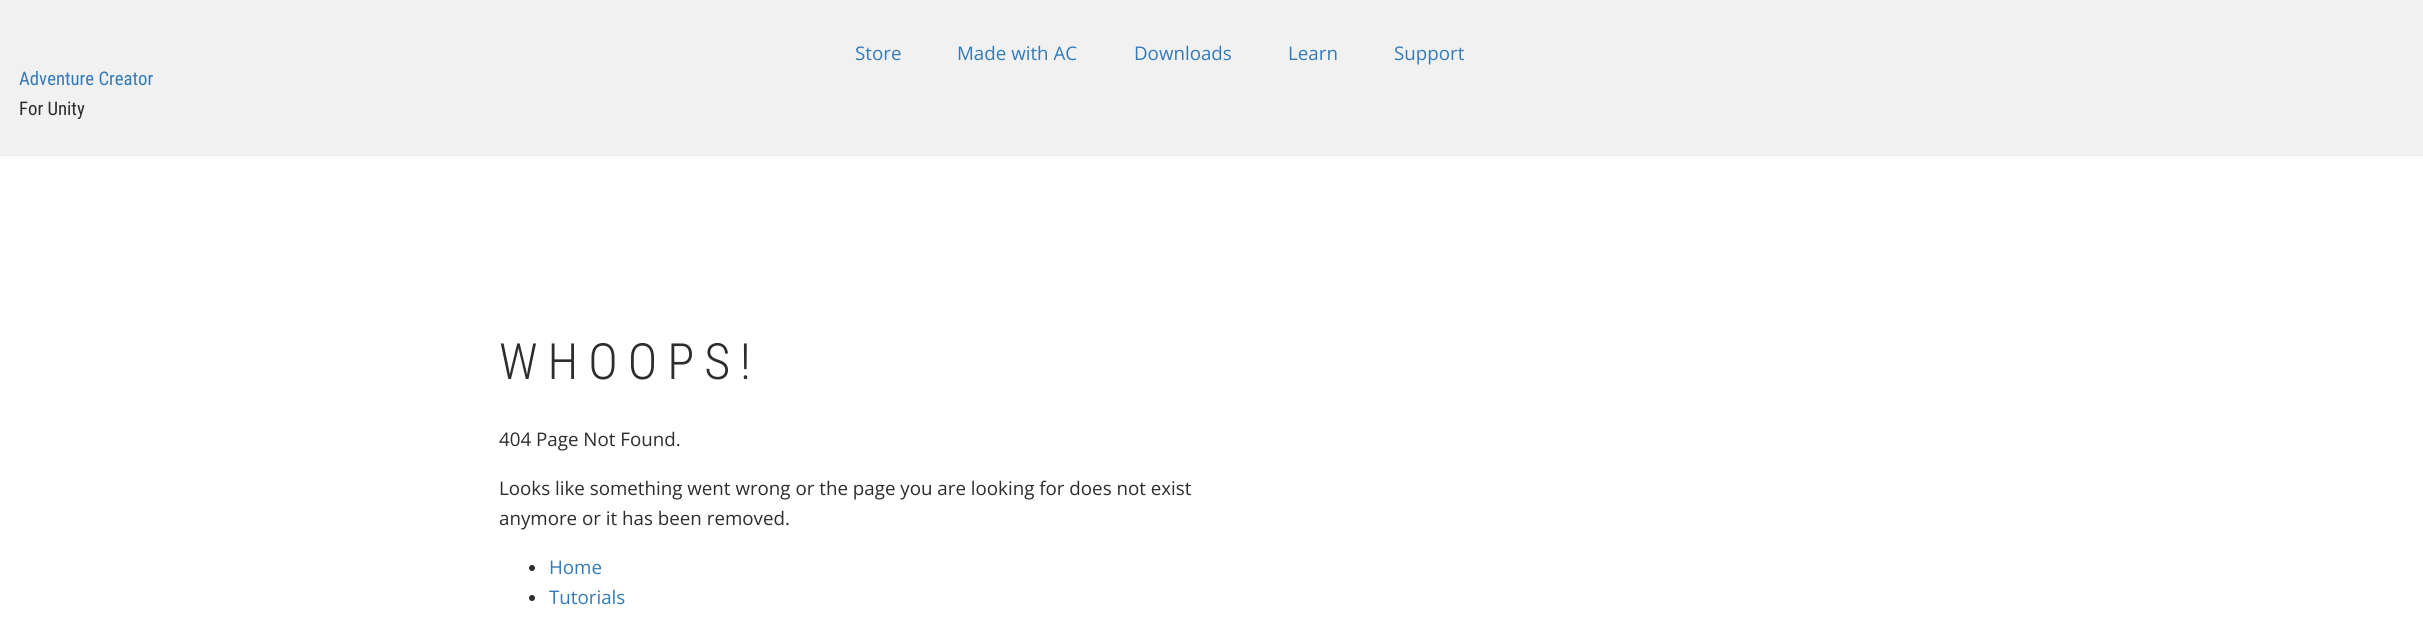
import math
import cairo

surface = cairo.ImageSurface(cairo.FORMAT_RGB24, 2423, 620)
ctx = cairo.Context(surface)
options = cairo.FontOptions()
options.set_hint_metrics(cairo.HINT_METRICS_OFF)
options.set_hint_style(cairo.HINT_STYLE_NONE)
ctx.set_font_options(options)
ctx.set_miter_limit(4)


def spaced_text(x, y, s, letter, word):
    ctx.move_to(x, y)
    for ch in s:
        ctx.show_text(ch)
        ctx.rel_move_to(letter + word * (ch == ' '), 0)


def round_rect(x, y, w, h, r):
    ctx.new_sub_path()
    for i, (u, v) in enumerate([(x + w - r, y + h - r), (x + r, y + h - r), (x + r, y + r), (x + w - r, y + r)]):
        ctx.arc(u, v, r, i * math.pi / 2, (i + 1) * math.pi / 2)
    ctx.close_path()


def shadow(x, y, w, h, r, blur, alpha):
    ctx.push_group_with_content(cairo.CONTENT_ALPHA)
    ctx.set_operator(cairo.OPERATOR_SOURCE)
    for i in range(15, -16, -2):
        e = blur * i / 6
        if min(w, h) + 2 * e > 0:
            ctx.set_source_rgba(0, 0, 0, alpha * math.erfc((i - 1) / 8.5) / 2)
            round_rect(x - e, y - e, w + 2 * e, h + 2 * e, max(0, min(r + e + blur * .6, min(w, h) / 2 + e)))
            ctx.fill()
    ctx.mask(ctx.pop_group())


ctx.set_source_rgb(1, 1, 1)
ctx.paint()
ctx.set_source_rgb(0.957, 0.957, 0.957)
ctx.rectangle(0, 155, 2423, 1)
ctx.fill()
ctx.set_source_rgb(0, 0, 0)
shadow(0, 1, 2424, 155, 0, 3, 0.05)
ctx.set_source_rgb(0.945, 0.945, 0.945)
ctx.rectangle(0, 0, 2423, 155)
ctx.fill()
ctx.select_font_face("Open Sans")
ctx.set_font_size(18.75)
ctx.set_source_rgb(0.2, 0.478, 0.718)
ctx.move_to(855, 60)
ctx.show_text("Store")
ctx.move_to(957, 60)
ctx.show_text("Made with AC")
ctx.move_to(1134, 60)
ctx.show_text("Downloads")
ctx.move_to(1288, 60)
ctx.show_text("Learn")
ctx.move_to(1394, 60)
ctx.show_text("Support")
ctx.select_font_face("Roboto Condensed")
ctx.move_to(19, 85)
ctx.show_text("Adventure Creator")
ctx.set_source_rgb(0.176, 0.176, 0.176)
ctx.move_to(19, 115)
ctx.show_text("For Unity")
ctx.select_font_face("Roboto Condensed Light")
ctx.set_font_size(50)
spaced_text(499, 379, "WHOOPS!", 10, 0)
ctx.select_font_face("Open Sans")
ctx.set_font_size(18.75)
ctx.move_to(499, 446)
ctx.show_text("404 Page Not Found.")
ctx.move_to(499, 495)
ctx.show_text("Looks like something went wrong or the page you are looking for does not exist")
ctx.move_to(499, 525)
ctx.show_text("anymore or it has been removed.")
ctx.new_path()
ctx.arc(532, 568, 3, 0, 2 * math.pi)
ctx.fill()
ctx.set_source_rgb(0.2, 0.478, 0.718)
ctx.move_to(549, 574)
ctx.show_text("Home")
ctx.set_source_rgb(0.176, 0.176, 0.176)
ctx.new_path()
ctx.arc(532, 598, 3, 0, 2 * math.pi)
ctx.fill()
ctx.set_source_rgb(0.2, 0.478, 0.718)
ctx.move_to(549, 604)
ctx.show_text("Tutorials")
surface.write_to_png("page.png")
